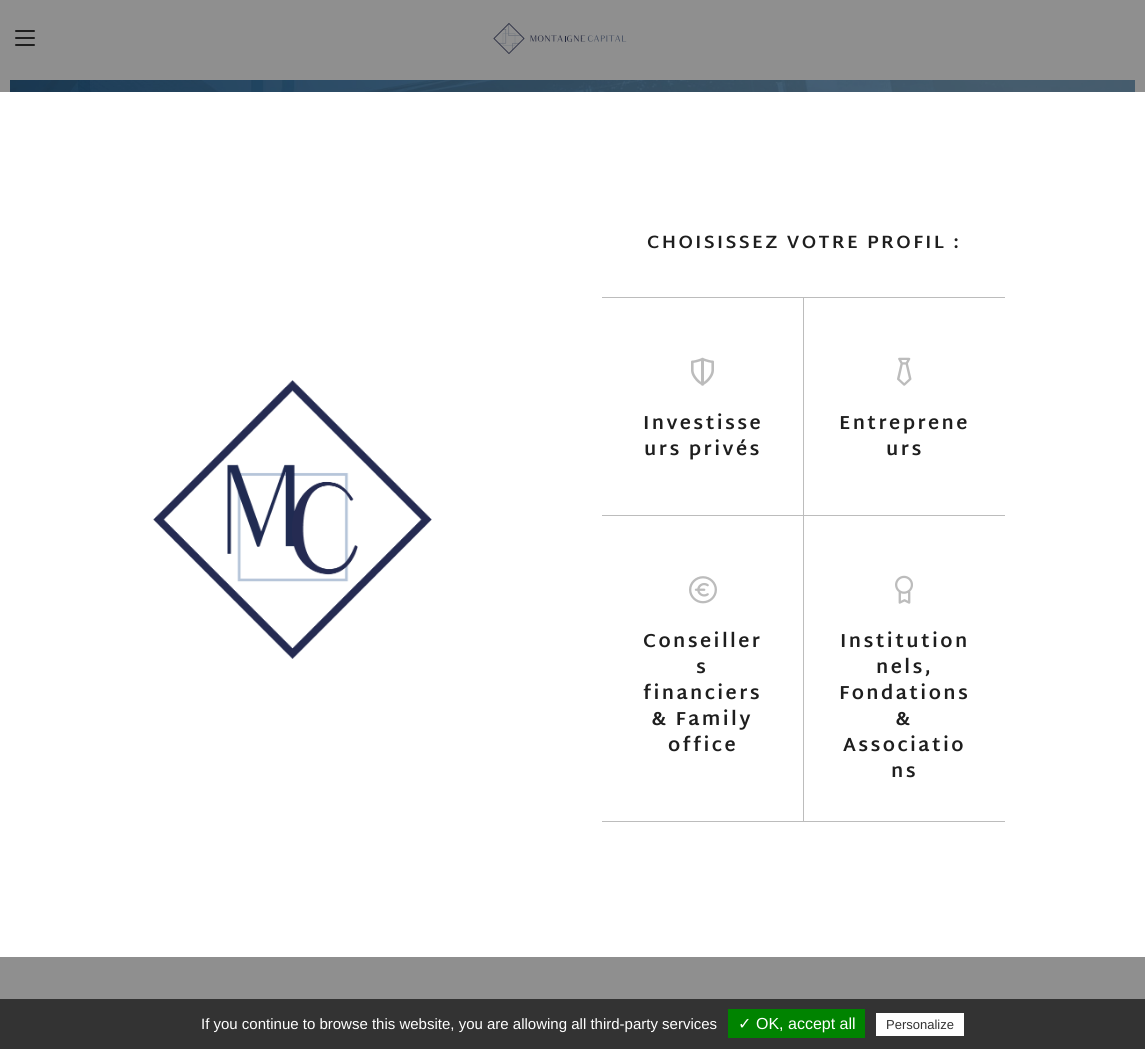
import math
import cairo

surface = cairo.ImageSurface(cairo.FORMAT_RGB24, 1145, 1049)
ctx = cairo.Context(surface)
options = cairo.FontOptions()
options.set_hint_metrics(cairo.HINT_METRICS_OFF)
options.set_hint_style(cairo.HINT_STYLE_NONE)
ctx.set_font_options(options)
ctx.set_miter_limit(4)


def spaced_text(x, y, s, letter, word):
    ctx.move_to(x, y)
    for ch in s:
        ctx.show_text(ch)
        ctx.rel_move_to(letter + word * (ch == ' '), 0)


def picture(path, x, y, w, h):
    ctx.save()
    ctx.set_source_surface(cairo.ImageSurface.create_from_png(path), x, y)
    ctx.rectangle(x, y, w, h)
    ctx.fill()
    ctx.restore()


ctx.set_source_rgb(0.561, 0.561, 0.561)
ctx.paint()
picture("img1.png", 15, 30, 20, 16)
picture("img2.png", 493, 23, 134, 31)
picture("img3.png", 10, 80, 1125, 12)
ctx.set_source_rgb(1, 1, 1)
ctx.rectangle(0, 92, 1145, 865)
ctx.fill()
picture("img4.png", 153, 380, 279, 279)
ctx.select_font_face("Martel Sans", cairo.FONT_SLANT_NORMAL, cairo.FONT_WEIGHT_BOLD)
ctx.set_font_size(18)
ctx.set_source_rgb(0.118, 0.118, 0.118)
spaced_text(647, 248, "CHOISISSEZ VOTRE PROFIL :", 2.4, 0)
ctx.set_source_rgb(0.737, 0.737, 0.737)
ctx.rectangle(602, 821, 403, 1)
ctx.fill()
ctx.rectangle(602, 297, 403, 1)
ctx.fill()
ctx.rectangle(803, 297, 1, 218)
ctx.fill()
picture("img5.png", 691, 357, 23, 29)
ctx.set_font_size(19)
ctx.set_source_rgb(0.118, 0.118, 0.118)
spaced_text(643, 429, "Investisse", 2.4, 0)
spaced_text(644, 455, "urs privés", 2.4, 0)
picture("img6.png", 897, 357, 15, 29)
spaced_text(839, 429, "Entreprene", 2.4, 0)
spaced_text(886, 455, "urs", 2.4, 0)
ctx.set_source_rgb(0.737, 0.737, 0.737)
ctx.rectangle(602, 515, 403, 1)
ctx.fill()
ctx.rectangle(803, 515, 1, 306)
ctx.fill()
picture("img7.png", 689, 576, 28, 28)
ctx.set_source_rgb(0.118, 0.118, 0.118)
spaced_text(643, 647, "Conseiller", 2.4, 0)
spaced_text(696, 673, "s", 2.4, 0)
spaced_text(643, 699, "financiers", 2.4, 0)
spaced_text(652, 725, "& Family", 2.4, 0)
spaced_text(668, 751, "office", 2.4, 0)
picture("img8.png", 895, 575, 18, 29)
spaced_text(840, 647, "Institution", 2.4, 0)
spaced_text(876, 673, "nels,", 2.4, 0)
spaced_text(839, 699, "Fondations", 2.4, 0)
spaced_text(896, 725, "&", 2.4, 0)
spaced_text(843, 751, "Associatio", 2.4, 0)
spaced_text(891, 777, "ns", 2.4, 0)
ctx.set_source_rgb(0.2, 0.2, 0.2)
ctx.rectangle(0, 999, 1145, 50)
ctx.fill()
ctx.select_font_face("Liberation Sans")
ctx.set_font_size(15)
ctx.set_source_rgb(1, 1, 1)
ctx.move_to(201, 1029)
ctx.show_text("If you continue to browse this website, you are allowing all third-party services")
ctx.set_source_rgb(0, 0.514, 0)
ctx.rectangle(728, 1009, 137, 29)
ctx.fill()
ctx.select_font_face("DejaVu Sans")
ctx.set_font_size(16)
ctx.set_source_rgb(1, 1, 1)
ctx.move_to(738, 1029)
ctx.show_text("✓")
ctx.select_font_face("Liberation Sans")
ctx.move_to(756, 1029)
ctx.show_text("OK, accept all")
ctx.rectangle(876, 1013, 88, 23)
ctx.fill()
ctx.set_font_size(13)
ctx.set_source_rgb(0.2, 0.2, 0.2)
ctx.move_to(886, 1029)
ctx.show_text("Personalize")
surface.write_to_png("page.png")
